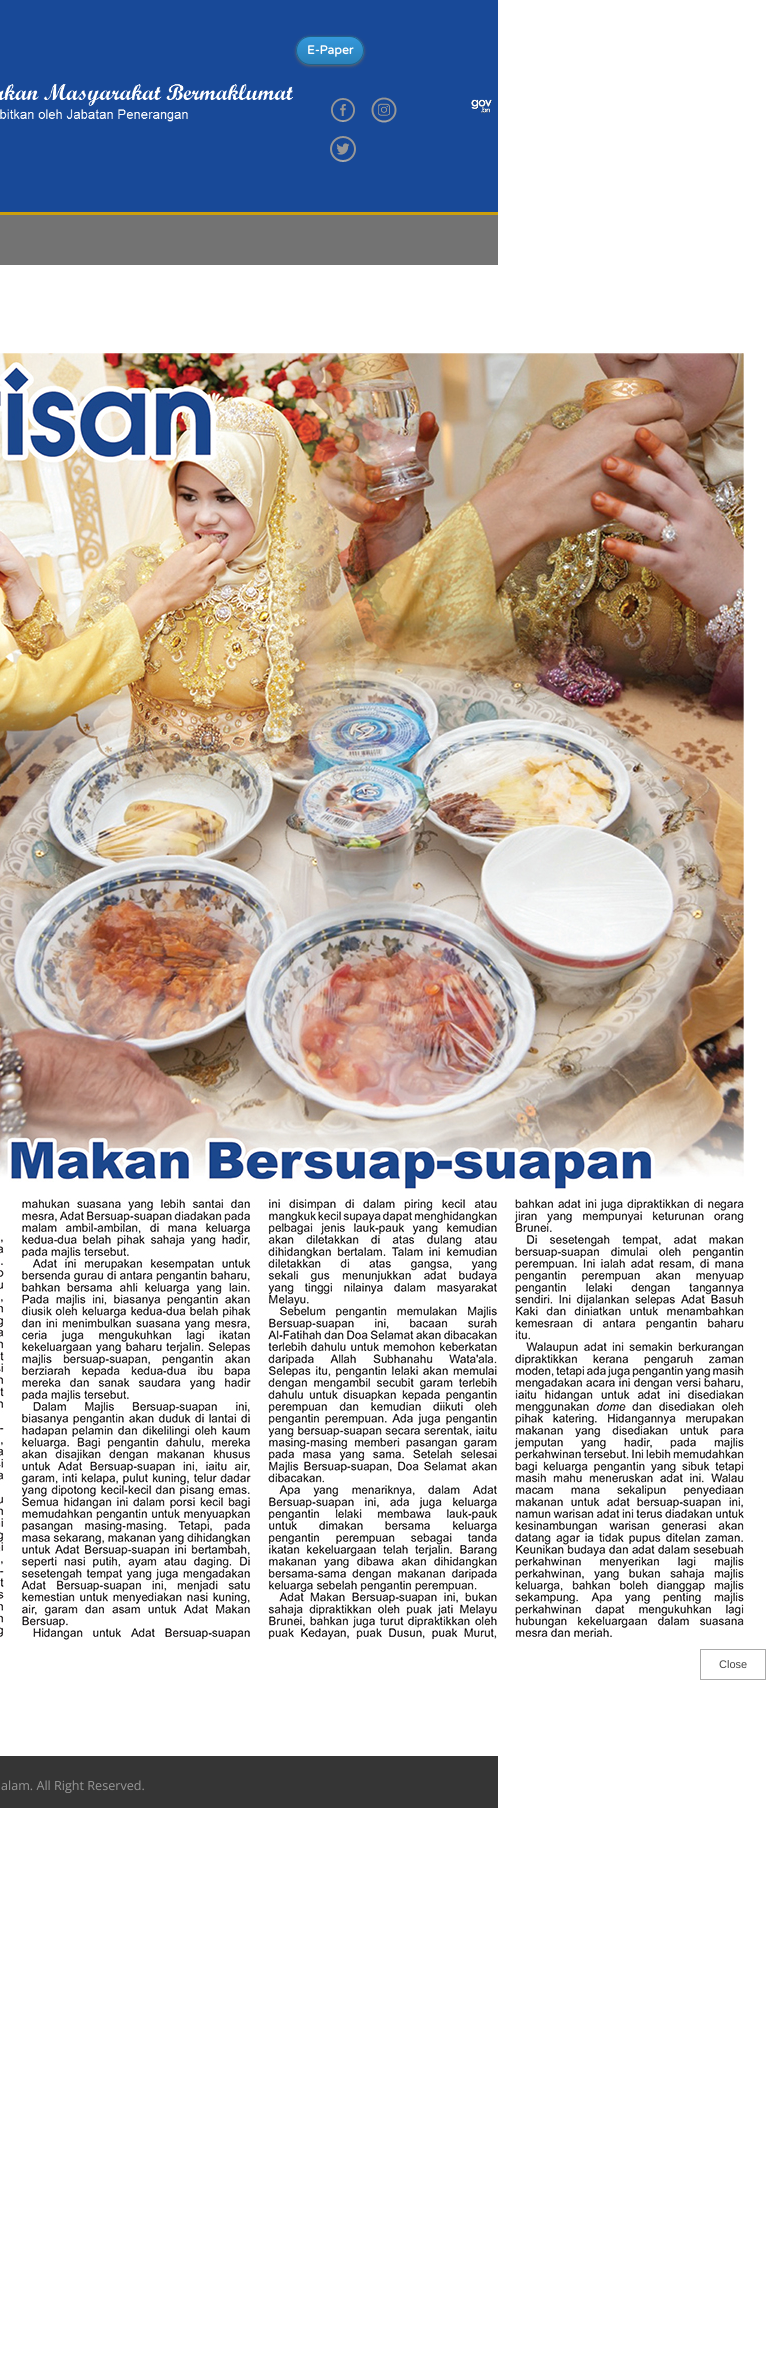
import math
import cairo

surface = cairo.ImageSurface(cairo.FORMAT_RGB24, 766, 2379)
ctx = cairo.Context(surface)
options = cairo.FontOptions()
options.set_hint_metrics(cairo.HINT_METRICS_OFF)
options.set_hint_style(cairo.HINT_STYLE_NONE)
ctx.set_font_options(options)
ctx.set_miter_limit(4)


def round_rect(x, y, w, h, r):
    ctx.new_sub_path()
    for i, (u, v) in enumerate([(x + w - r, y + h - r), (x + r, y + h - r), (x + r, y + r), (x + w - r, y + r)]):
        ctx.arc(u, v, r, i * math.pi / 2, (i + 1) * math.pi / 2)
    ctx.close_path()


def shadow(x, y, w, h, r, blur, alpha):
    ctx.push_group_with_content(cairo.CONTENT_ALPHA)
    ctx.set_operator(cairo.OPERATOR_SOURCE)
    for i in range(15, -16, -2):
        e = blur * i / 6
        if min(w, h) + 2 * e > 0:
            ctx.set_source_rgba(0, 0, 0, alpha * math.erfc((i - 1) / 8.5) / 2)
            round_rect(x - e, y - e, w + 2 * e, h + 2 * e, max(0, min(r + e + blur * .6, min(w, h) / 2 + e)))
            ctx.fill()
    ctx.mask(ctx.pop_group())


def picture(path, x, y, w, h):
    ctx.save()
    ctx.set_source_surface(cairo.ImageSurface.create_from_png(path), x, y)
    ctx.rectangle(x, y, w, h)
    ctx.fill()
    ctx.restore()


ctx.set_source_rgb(1, 1, 1)
ctx.paint()
ctx.set_source_rgb(0.847, 0.824, 0.824)
shadow(-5, 3, 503, 215, 0, 1.5, 0.23)
ctx.set_source_rgb(0.094, 0.286, 0.596)
ctx.rectangle(0, 0, 498, 212)
ctx.fill()
ctx.set_source_rgb(0.8, 0.624, 0.047)
ctx.rectangle(0, 212, 498, 3)
ctx.fill()
ctx.set_source_rgb(0.4, 0.4, 0.4)
shadow(296, 37, 68, 29, 14.5, 1.5, 1)
ctx.save()
round_rect(296, 36, 68, 29, 14.5)
ctx.clip()
gradient = cairo.LinearGradient(330, 37, 330, 64)
gradient.add_color_stop_rgba(0, 0.204, 0.596, 0.859, 1)
gradient.add_color_stop_rgba(1, 0.161, 0.502, 0.725, 1)
ctx.set_source(gradient)
ctx.rectangle(296, 37, 68, 27)
ctx.fill()
ctx.restore()
round_rect(296.5, 36.5, 67, 28, 14)
ctx.set_source_rgb(0.122, 0.384, 0.553)
ctx.set_line_width(1)
ctx.stroke()
ctx.select_font_face("Varela Round", cairo.FONT_SLANT_NORMAL, cairo.FONT_WEIGHT_BOLD)
ctx.set_font_size(12)
ctx.set_source_rgb(1, 1, 1)
ctx.move_to(307, 54)
ctx.show_text("E-Paper")
picture("img1.png", 331, 98, 24, 24)
picture("img2.png", 371, 97, 26, 26)
picture("img3.png", 330, 136, 26, 26)
picture("img4.png", 0, 84, 293, 38)
picture("img5.png", 471, 99, 21, 14)
ctx.set_source_rgb(0.451, 0.451, 0.451)
ctx.rectangle(0, 215, 498, 50)
ctx.fill()
picture("img6.png", 0, 351, 744, 1289)
ctx.rectangle(700.5, 1649.5, 65, 30)
ctx.set_source_rgb(0.671, 0.671, 0.671)
ctx.stroke()
ctx.select_font_face("Liberation Sans")
ctx.set_font_size(11)
ctx.set_source_rgb(0.267, 0.267, 0.267)
ctx.move_to(719, 1668)
ctx.show_text("Close")
ctx.set_source_rgb(0.208, 0.208, 0.208)
ctx.rectangle(0, 1756, 498, 52)
ctx.fill()
ctx.select_font_face("Open Sans")
ctx.set_font_size(12.6)
ctx.set_source_rgb(0.592, 0.592, 0.592)
ctx.move_to(1, 1790)
ctx.show_text("alam. All Right Reserved.")
surface.write_to_png("page.png")
